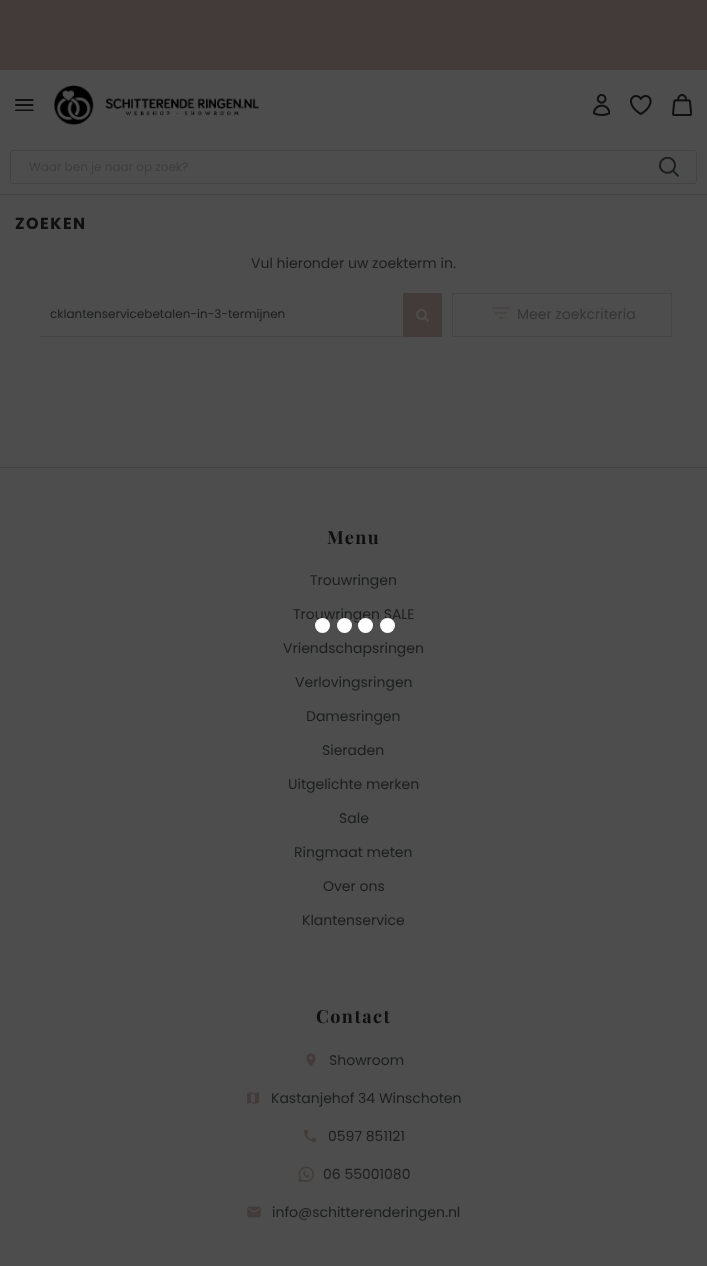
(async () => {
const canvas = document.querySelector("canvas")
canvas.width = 707
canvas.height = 1266
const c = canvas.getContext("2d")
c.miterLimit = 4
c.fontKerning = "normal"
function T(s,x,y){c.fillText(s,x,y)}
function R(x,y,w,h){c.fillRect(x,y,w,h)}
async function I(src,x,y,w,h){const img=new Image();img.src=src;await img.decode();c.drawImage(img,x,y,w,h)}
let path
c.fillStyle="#4d4d4d"
R(0,0,707,1266)
c.fillStyle="#434343"
R(0,194,707,1)
c.fillStyle="#423b3a"
R(0,0,707,70)
c.save()
c.beginPath()
c.rect(15,99,19,12)
c.clip()
path = new Path2D("M16 100h16.5m-16.5 5h16.5m-16.5 5.5h16.5")
c.strokeStyle="#0f0f0f"
c.lineWidth=2
c.lineCap="round"
c.lineJoin="round"
c.stroke(path)
c.restore()
await I("1.png",54,85,206,40)
await I("2.png",593,94,17,22)
await I("3.png",630,95,22,20)
await I("4.png",672,94,20,22)
c.beginPath()
c.roundRect(10.5,150.5,686,33,2.5)
c.strokeStyle="#434343"
c.stroke()
c.font="12px Poppins"
c.fillStyle="#3d3d3d"
T("Waar ben je naar op zoek?",29,171)
await I("5.png",659,157,20,20)
c.letterSpacing="1.5px"
c.font="bold 16px Poppins"
c.fillStyle="#0f0f0f"
T("ZOEKEN",15,229)
c.letterSpacing="0px"
c.font="14px Poppins"
c.fillStyle="#1c1d1d"
T("Vul hieronder uw zoekterm in.",251,268)
c.fillStyle="#434343"
R(40,336,363,1)
c.font="12px Poppins"
c.fillStyle="#1c1d1d"
T("cklantenservicebetalen-in-3-termijnen",50,318)
c.fillStyle="#423b3a"
R(403,293,39,44)
await I("6.png",416,309,13,13)
c.strokeStyle="#454545"
c.strokeRect(452.5,293.5,219,43)
await I("7.png",492,307,18,12)
c.font="14px Poppins"
c.fillStyle="#353535"
T("Meer zoekcriteria",517,319)
c.fillStyle="#1c1d1d"
T("Trouwringen SALE",293,619)
c.fillStyle="#fff"
c.beginPath()
c.arc(322.5,625.5,7.5,0,7)
c.fill()
c.beginPath()
c.arc(344.5,625.5,7.5,0,7)
c.fill()
c.beginPath()
c.arc(365.5,625.5,7.5,0,7)
c.fill()
c.beginPath()
c.arc(387.5,625.5,7.5,0,7)
c.fill()
c.fillStyle="#434343"
R(0,467,707,1)
c.letterSpacing="1.5px"
c.font="bold 18px Playfair Display"
c.fillStyle="#0f0f0f"
T("Menu",327,544)
c.letterSpacing="0px"
c.font="14px Poppins"
c.fillStyle="#1c1d1d"
T("Trouwringen",310,585)
T("Vriendschapsringen",283,653)
T("Verlovingsringen",295,687)
T("Damesringen",306,721)
T("Sieraden",322,755)
T("Uitgelichte merken",288,789)
T("Sale",339,823)
T("Ringmaat meten",294,857)
T("Over ons",323,891)
T("Klantenservice",302,925)
c.letterSpacing="1.5px"
c.font="bold 18px Playfair Display"
c.fillStyle="#0f0f0f"
T("Contact",316,1023)
await I("8.png",306,1053,10,14)
c.letterSpacing="0px"
c.font="14px Poppins"
c.fillStyle="#1c1d1d"
T("Showroom",329,1065)
await I("9.png",247,1092,12,12)
T("Kastanjehof 34 Winschoten",271,1103)
await I("10.png",304,1130,12,12)
T("0597 851121",328,1141)
await I("11.png",298,1166,16,16)
T("06 55001080",323,1179)
await I("12.png",247,1206,14,12)
T("info@schitterenderingen.nl",272,1217)
})()
